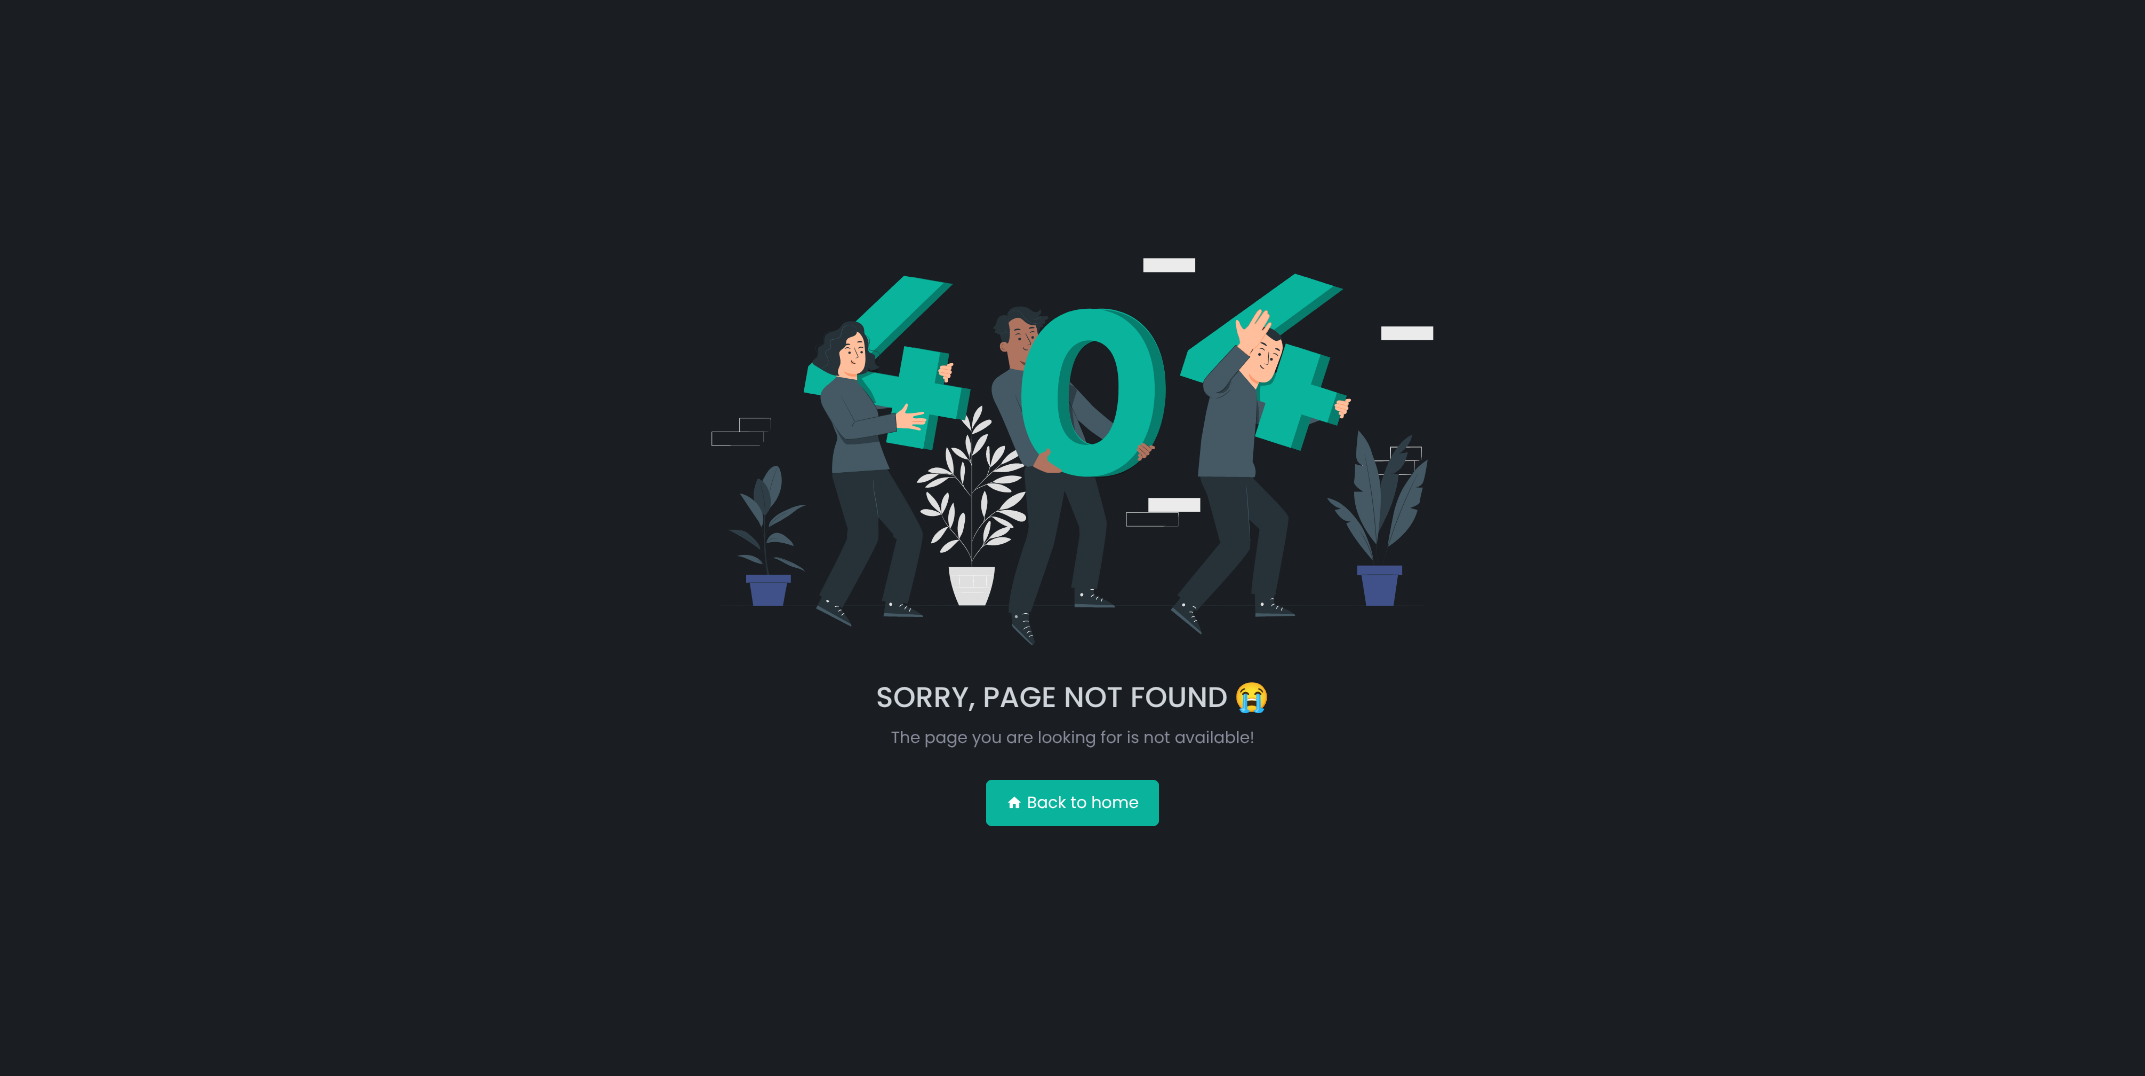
(async () => {
const canvas = document.querySelector("canvas")
canvas.width = 2145
canvas.height = 1076
const c = canvas.getContext("2d")
c.miterLimit = 4
c.fontKerning = "normal"
function T(s,x,y){c.fillText(s,x,y)}
function R(x,y,w,h){c.fillRect(x,y,w,h)}
async function I(src,x,y,w,h){const img=new Image();img.src=src;await img.decode();c.drawImage(img,x,y,w,h)}
c.fillStyle="#1a1d21"
R(0,0,2145,1076)
await I("1.png",711,258,723,387)
c.font="500 28.5px Poppins"
c.fillStyle="#ced4da"
T("SORRY, PAGE NOT FOUND",876,707)
c.font="28.5px Noto Color Emoji"
T("😭",1234,707)
c.font="16.25px Poppins"
c.fillStyle="#878a99"
T("The page you are looking for is not available!",891,743)
c.fillStyle="#0ab39c"
c.beginPath()
c.roundRect(986.5,780.5,172,45,4.5)
c.fill()
c.strokeStyle="#0ab39c"
c.stroke()
await I("2.png",1007,796,14,13)
c.fillStyle="#fff"
T("Back to home",1027,808)
})()
